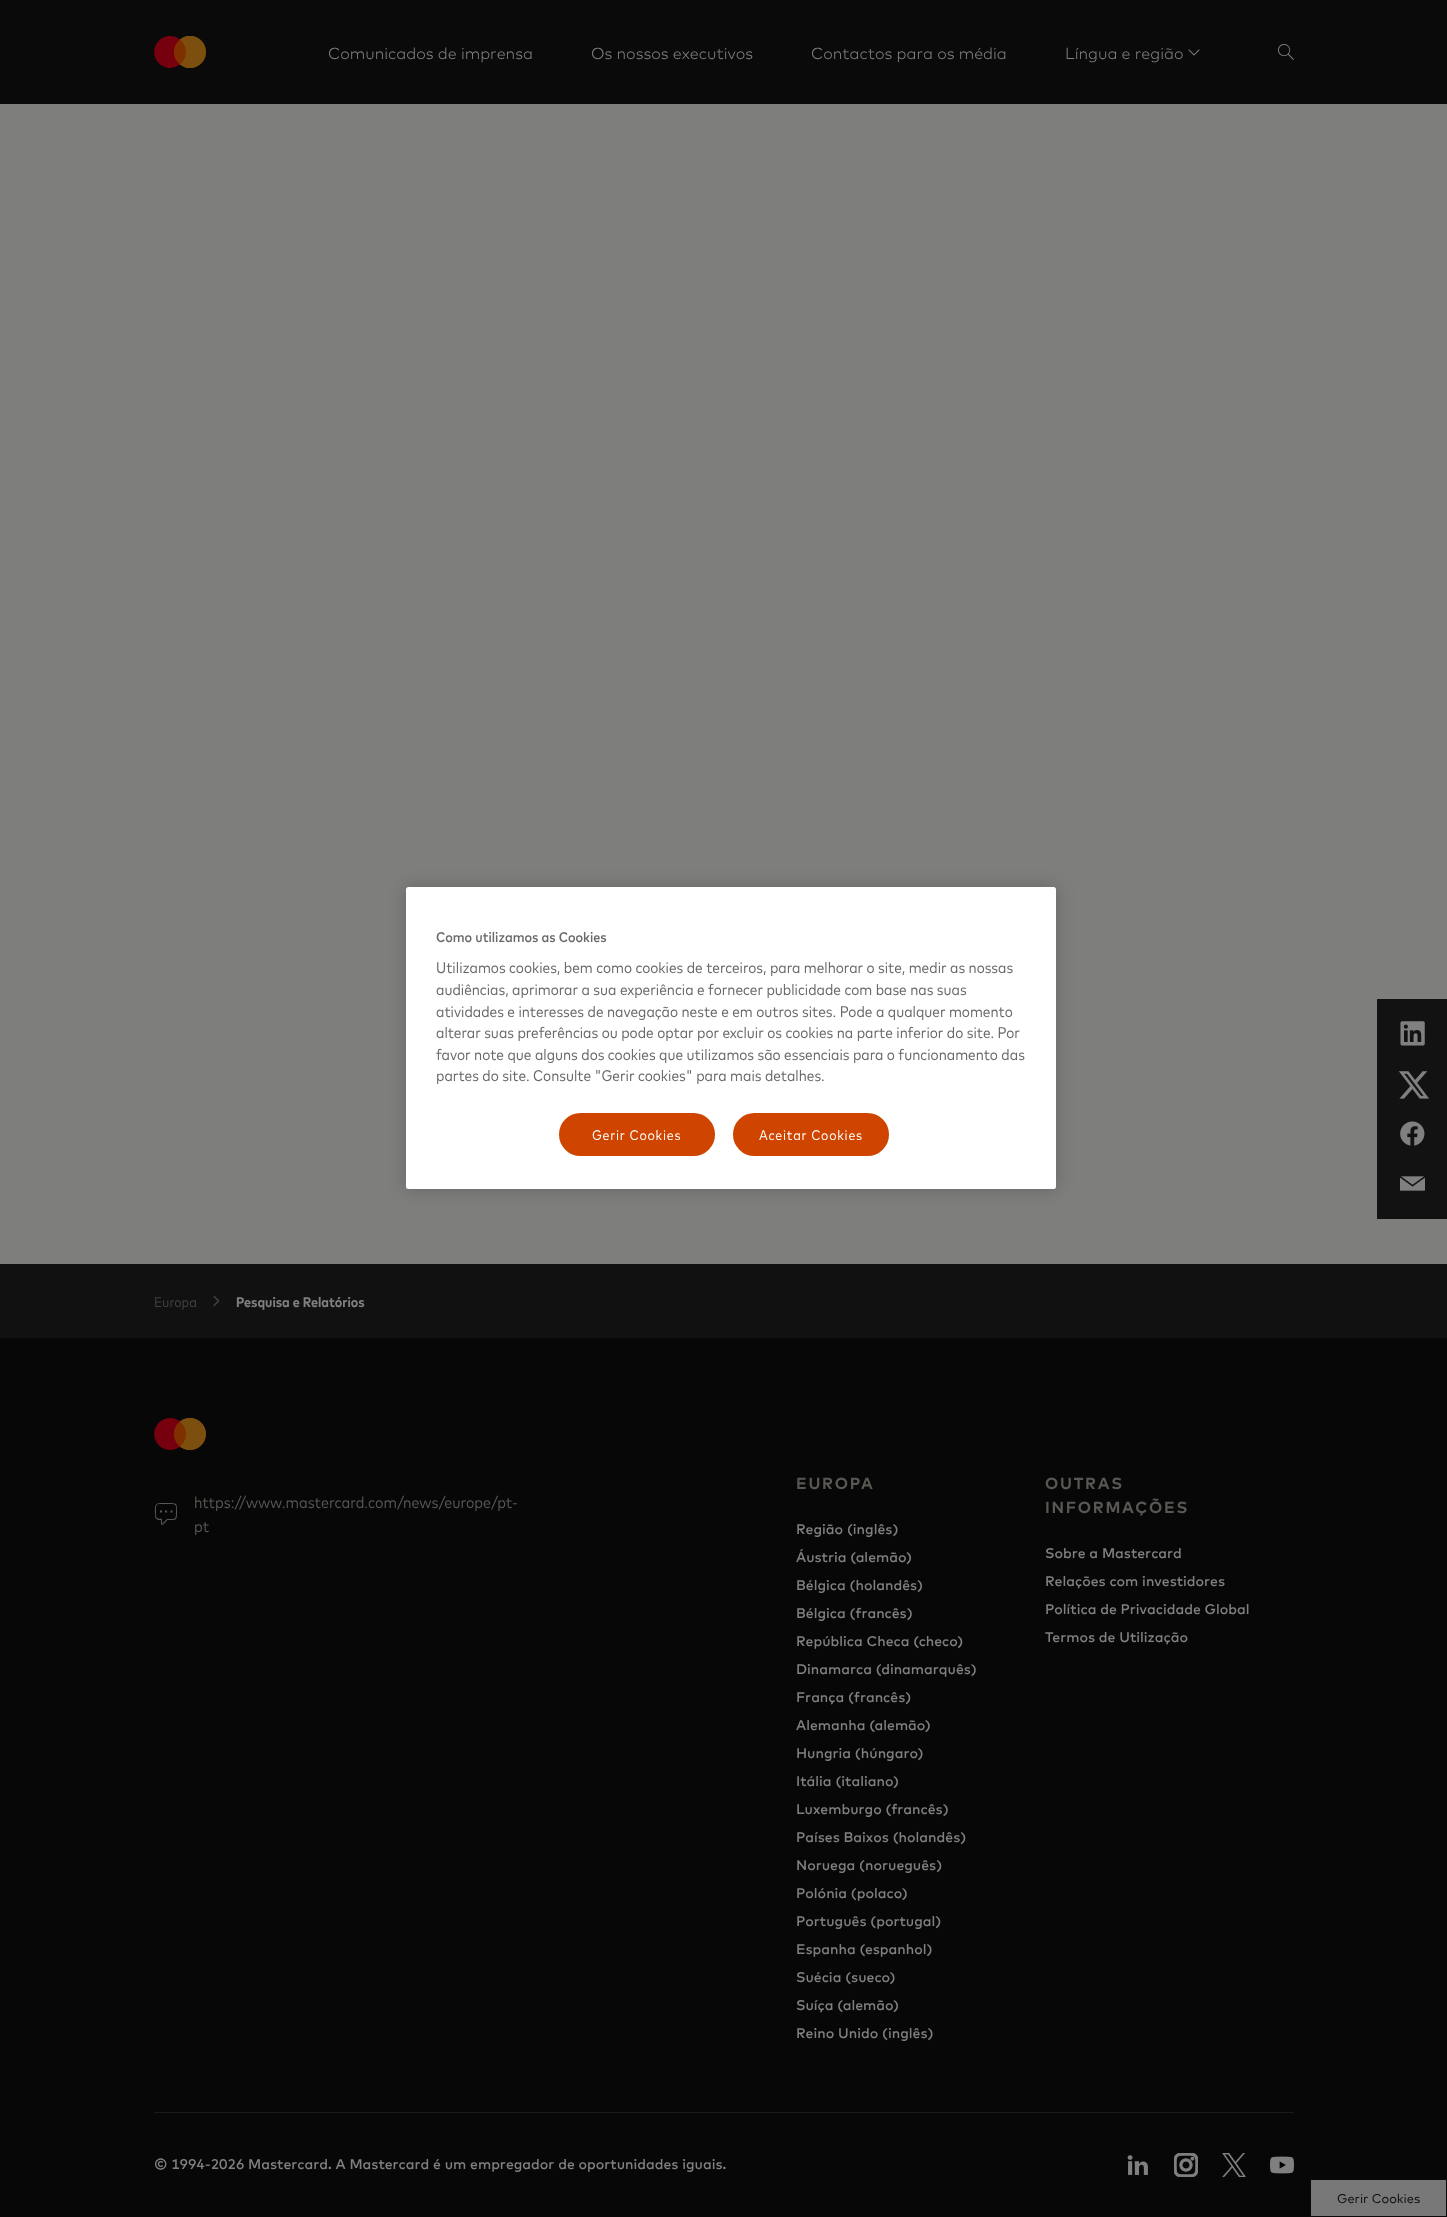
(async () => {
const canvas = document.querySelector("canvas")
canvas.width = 1447
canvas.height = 2217
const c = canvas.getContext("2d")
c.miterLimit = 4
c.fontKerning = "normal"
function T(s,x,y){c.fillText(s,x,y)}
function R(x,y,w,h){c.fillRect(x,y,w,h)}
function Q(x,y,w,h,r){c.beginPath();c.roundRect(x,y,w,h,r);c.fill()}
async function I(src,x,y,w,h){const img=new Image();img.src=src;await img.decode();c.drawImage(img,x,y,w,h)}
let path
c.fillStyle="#111"
R(0,0,1447,2217)
c.fillStyle="#0a0a0a"
R(0,0,1447,104)
await I("1.png",154,36,52,32)
c.font="300 16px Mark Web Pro"
c.fillStyle="#808080"
T("Comunicados de imprensa",328,59)
T("Os nossos executivos",591,59)
T("Contactos para os média",811,59)
await I("2.png",1188,49,12,7)
T("Língua e região",1065,59)
await I("3.png",1278,44,16,16)
c.fillStyle="#7e7e7d"
R(0,104,1447,1160)
c.fillStyle="#121212"
R(1377,999,70,220)
await I("4.png",1400,1021,25,25)
await I("5.png",1398,1071,31,28)
await I("6.png",1400,1121,25,25)
await I("7.png",1400,1176,25,15)
c.font="14px 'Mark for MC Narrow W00'"
c.fillStyle="#424242"
T("Europa",154,1307)
await I("8.png",213,1295,7,12)
c.font="bold 14px 'Mark for MC Narrow W00'"
c.fillStyle="#808080"
T("Pesquisa e Relatórios",236,1307)
c.fillStyle="#070707"
R(0,1338,1447,879)
await I("9.png",154,1418,52,32)
c.fillStyle="#595753"
path = new Path2D("M162 1525c1.5 0 4.5-4 5.5-5c9 0 9.5 1 9.5-8.5c0-8.5 0-8.5-8.5-8.5c-2.5 0-9-.5-11 .5c-3.5 1.5-2.5 6.5-2.5 9.5c0 5.5 .5 7 6 7c0 1-.5 5 1 5zm-3-21h12c6 0 5 2 5 7.5c0 9-.5 7.5-9 7.5l-5 5v-5c-.5-.5-4 .5-5.5-1.5c-1-1.5-.5-4-.5-6c0-2.5-1-7.5 3-7.5zm3 6.5v2h-2v-2zm5 0v2h-2v-2zm5.5 0v2h-2v-2z")
c.fill(path,"evenodd")
c.font="16px 'Mark for MC Narrow W00'"
T("https://www.mastercard.com/news/europe/pt-",194,1508)
T("pt",194,1532)
c.letterSpacing="1.75px"
c.font="bold 16px Mark Web Pro"
T("EUROPA",796,1489)
c.letterSpacing="0px"
c.font="500 14px Mark Web Pro"
c.fillStyle="#808080"
T("Região (inglês)",796,1534)
T("Áustria (alemão)",796,1562)
T("Bélgica (holandês)",796,1590)
T("Bélgica (francês)",796,1618)
T("República Checa (checo)",796,1646)
T("Dinamarca (dinamarquês)",796,1674)
T("França (francês)",796,1702)
T("Alemanha (alemão)",796,1730)
T("Hungria (húngaro)",796,1758)
T("Itália (italiano)",796,1786)
T("Luxemburgo (francês)",796,1814)
T("Países Baixos (holandês)",796,1842)
T("Noruega (norueguês)",796,1870)
T("Polónia (polaco)",796,1898)
T("Português (portugal)",796,1926)
T("Espanha (espanhol)",796,1954)
T("Suécia (sueco)",796,1982)
T("Suíça (alemão)",796,2010)
T("Reino Unido (inglês)",796,2038)
c.letterSpacing="1.75px"
c.font="bold 16px Mark Web Pro"
c.fillStyle="#595753"
T("OUTRAS",1045,1489)
T("INFORMAÇÕES",1045,1513)
c.letterSpacing="0px"
c.font="500 14px Mark Web Pro"
c.fillStyle="#808080"
T("Sobre a Mastercard",1045,1558)
T("Relações com investidores",1045,1586)
T("Política de Privacidade Global",1045,1614)
T("Termos de Utilização",1045,1642)
c.fillStyle="#1a1a19"
R(154,2112,1140,1)
c.fillStyle="#808080"
T("© 1994-2026 Mastercard. A Mastercard é um empregador de oportunidades iguais.",154,2169)
await I("10.png",1127,2155,21,20)
await I("11.png",1174,2153,24,24)
await I("12.png",1222,2153,24,24)
await I("13.png",1270,2156,24,18)
c.fillStyle="#787878"
c.beginPath()
c.rect(1310.5,2179.5,136,37)
c.fill()
c.strokeStyle="#0a0a0a"
c.stroke()
c.font="12.75px Mark Web Pro"
c.fillStyle="#0a0a0a"
T("Gerir Cookies",1337,2203)
c.fillStyle="#00000033"
c.filter="blur(9px)"
c.beginPath()
c.roundRect(406,887,650,302,2.5)
c.fill()
c.filter="none"
c.fillStyle="#fff"
Q(406,887,650,302,2.5)
c.font="500 14px 'Mark for MC Narrow W00'"
c.fillStyle="#696969"
T("Como utilizamos as Cookies",436,942)
c.font="15.4px 'Mark for MC Narrow W00'"
T("Utilizamos cookies, bem como cookies de terceiros, para melhorar o site, medir as nossas",436,973)
T("audiências, aprimorar a sua experiência e fornecer publicidade com base nas suas",436,995)
T("atividades e interesses de navegação neste e em outros sites. Pode a qualquer momento",436,1017)
T("alterar suas preferências ou pode optar por excluir os cookies na parte inferior do site. Por",436,1038)
T("favor note que alguns dos cookies que utilizamos são essenciais para o funcionamento das",436,1060)
T("partes do site. Consulte \"Gerir cookies\" para mais detalhes.",436,1081)
c.fillStyle="#cf4500"
c.beginPath()
c.roundRect(558,1112,158,45,22.5)
c.fill()
c.strokeStyle="#fff"
c.lineWidth=2
c.stroke()
c.letterSpacing="0.75px"
c.font="14px 'Mark for MC Narrow W00'"
c.fillStyle="#fff"
T("Gerir Cookies",592,1140)
c.fillStyle="#cf4500"
c.beginPath()
c.roundRect(732,1112,158,45,22.5)
c.fill()
c.stroke()
c.fillStyle="#fff"
T("Aceitar Cookies",759,1140)
})()
